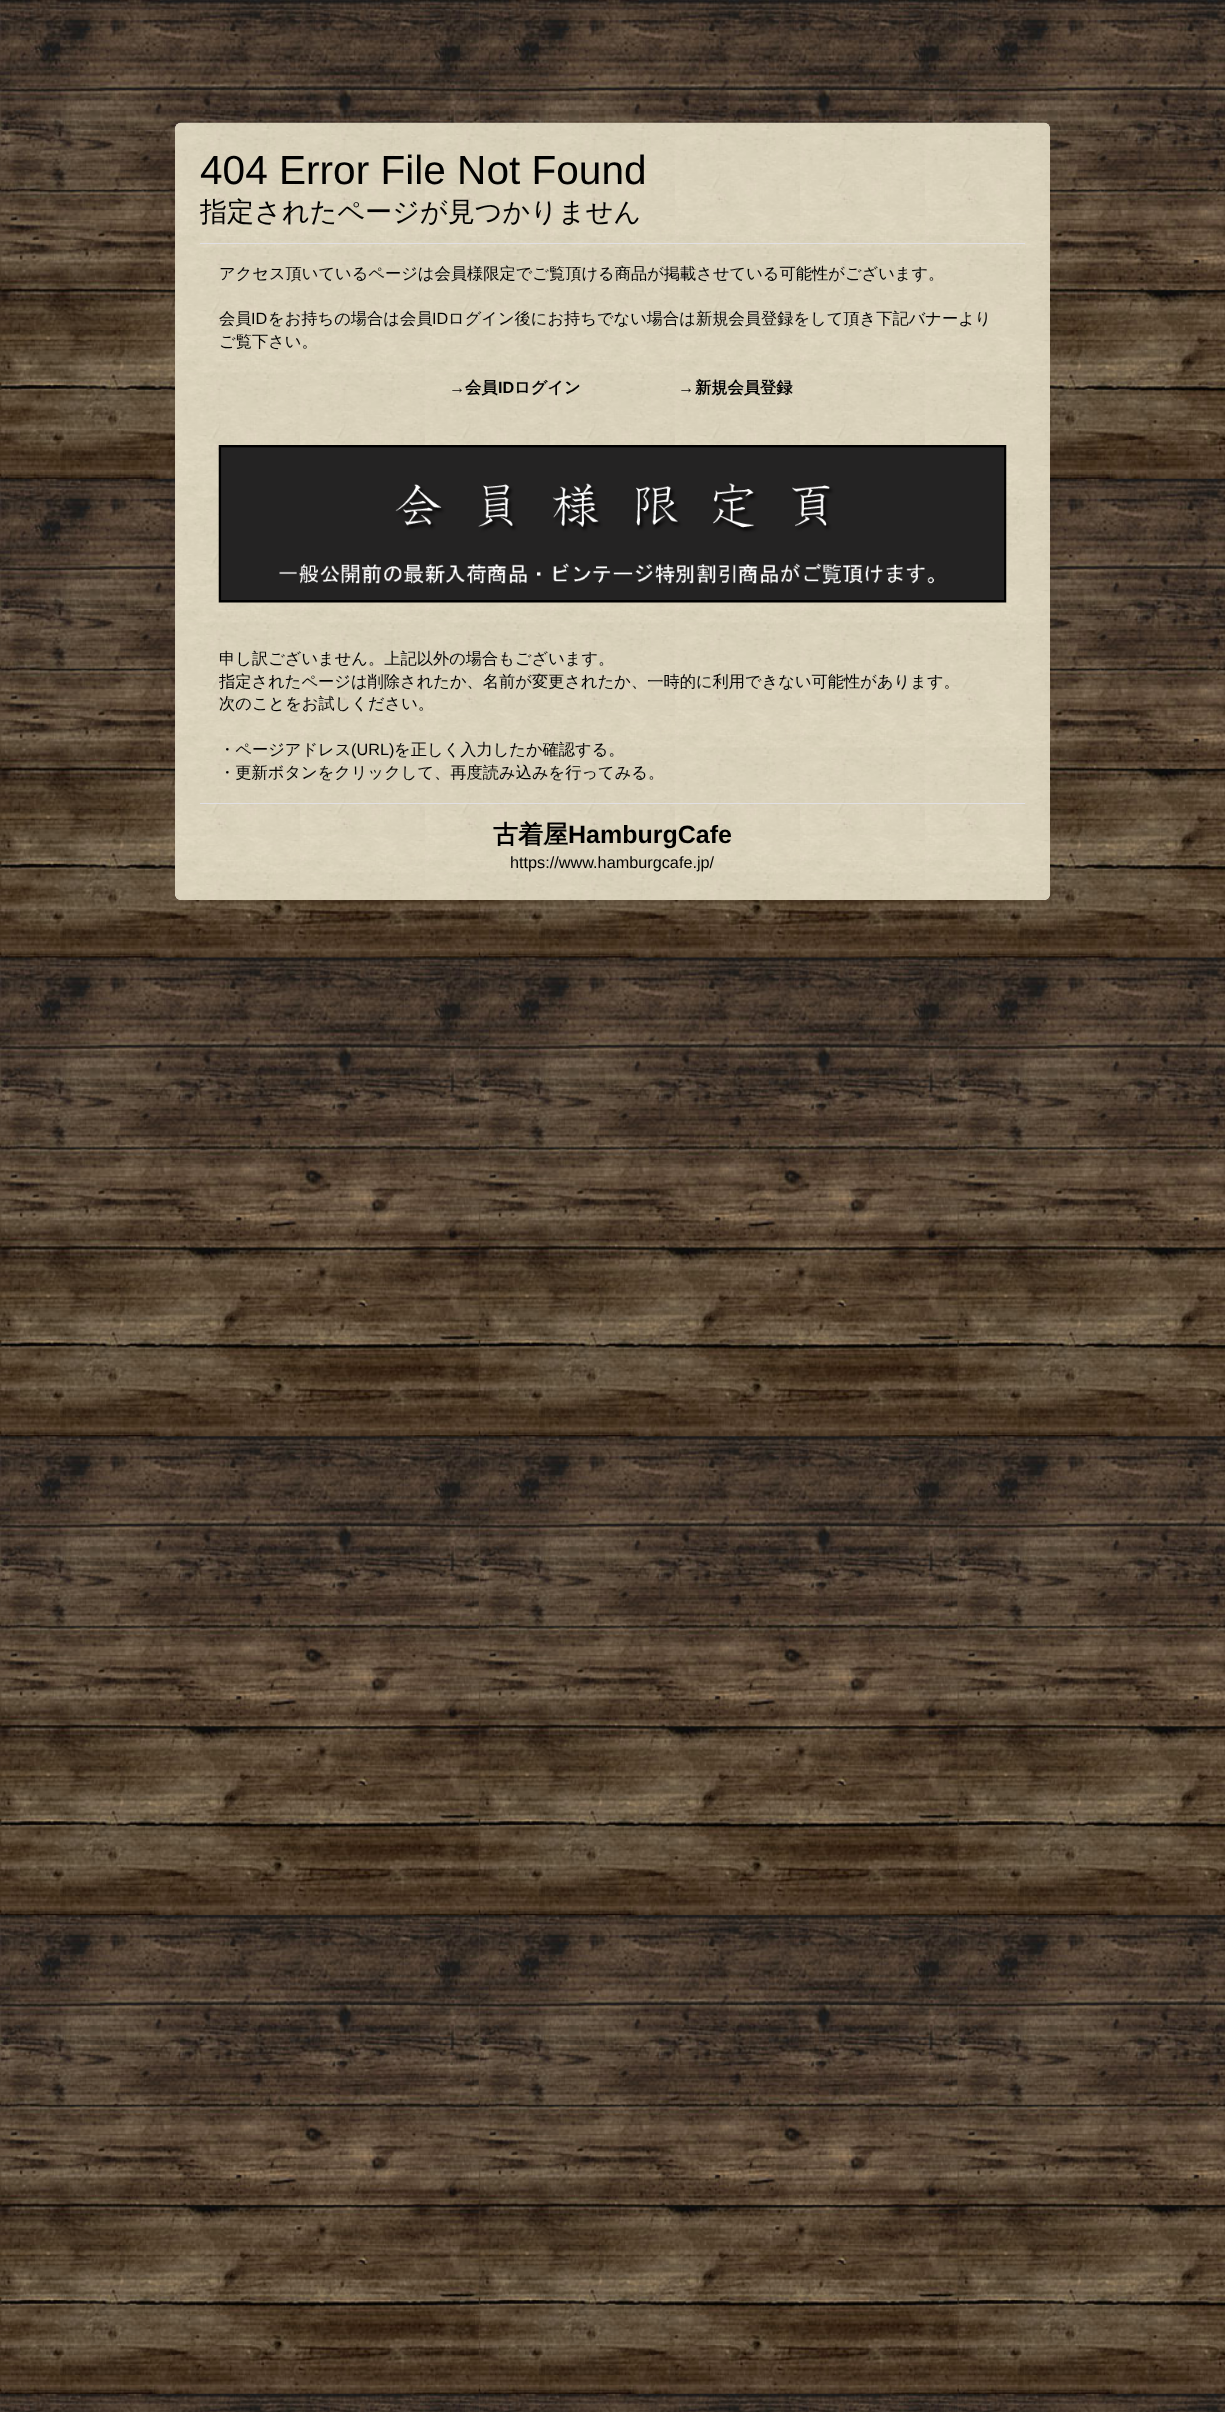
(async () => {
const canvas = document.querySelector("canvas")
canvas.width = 1225
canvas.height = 2412
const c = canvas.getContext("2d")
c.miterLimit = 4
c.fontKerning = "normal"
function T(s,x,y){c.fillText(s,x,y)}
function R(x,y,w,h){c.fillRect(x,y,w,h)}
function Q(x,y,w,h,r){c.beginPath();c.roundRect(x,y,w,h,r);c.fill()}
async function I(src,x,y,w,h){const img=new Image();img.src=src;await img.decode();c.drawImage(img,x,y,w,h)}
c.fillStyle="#fff"
R(0,0,1225,2412)
await I("1.png",0,0,1225,2412)
Q(175,123,875,777,6)
await I("2.png",175,122,875,778)
c.font="40.6px Liberation Sans"
c.fillStyle="#000"
T("404 Error File Not Found",200,184)
c.font="500 27.1px WenQuanYi Zen Hei"
T("指定されたページが見つかりません",200,221)
c.fillStyle="#e0dfe3"
R(200,243,825,1)
R(200,803,825,1)
c.font="500 16.25px WenQuanYi Zen Hei"
c.fillStyle="#000"
T("アクセス頂いているページは会員様限定でご覧頂ける商品が掲載させている可能性がございます。",219,279)
T("会員",219,324)
c.font="16.25px Liberation Sans"
T("ID",251,324)
c.font="500 16.25px WenQuanYi Zen Hei"
T("をお持ちの場合は会員",268,324)
c.font="16.25px Liberation Sans"
T("ID",432,324)
c.font="500 16.25px WenQuanYi Zen Hei"
T("ログイン後にお持ちでない場合は新規会員登録をして頂き下記バナーより",448,324)
T("ご覧下さい。",219,347)
c.font="bold 16.25px Liberation Sans"
T("→",449,393)
c.font="bold 16.25px WenQuanYi Zen Hei"
T("会員",465,393)
c.font="bold 16.25px Liberation Sans"
T("ID",498,393)
c.font="bold 16.25px WenQuanYi Zen Hei"
T("ログイン",514,393)
c.font="bold 16.25px Liberation Sans"
T("→",678,393)
c.font="bold 16.25px WenQuanYi Zen Hei"
T("新規会員登録",695,393)
await I("3.png",218,445,789,158)
c.font="500 16.25px WenQuanYi Zen Hei"
T("申し訳ございません。上記以外の場合もございます。",219,664)
T("指定されたページは削除されたか、名前が変更されたか、一時的に利用できない可能性があります。",219,687)
T("次のことをお試しください。",219,709)
T("・ページアドレス",219,755)
c.font="16.25px Liberation Sans"
T("(URL)",351,755)
c.font="500 16.25px WenQuanYi Zen Hei"
T("を正しく入力したか確認する。",394,755)
T("・更新ボタンをクリックして、再度読み込みを行ってみる。",219,778)
c.font="bold 25px WenQuanYi Zen Hei"
T("古着屋",493,843)
c.font="bold 25px Liberation Sans"
T("HamburgCafe",568,843)
c.font="16.25px Liberation Sans"
T("https://www.hamburgcafe.jp/",510,868)
})()
